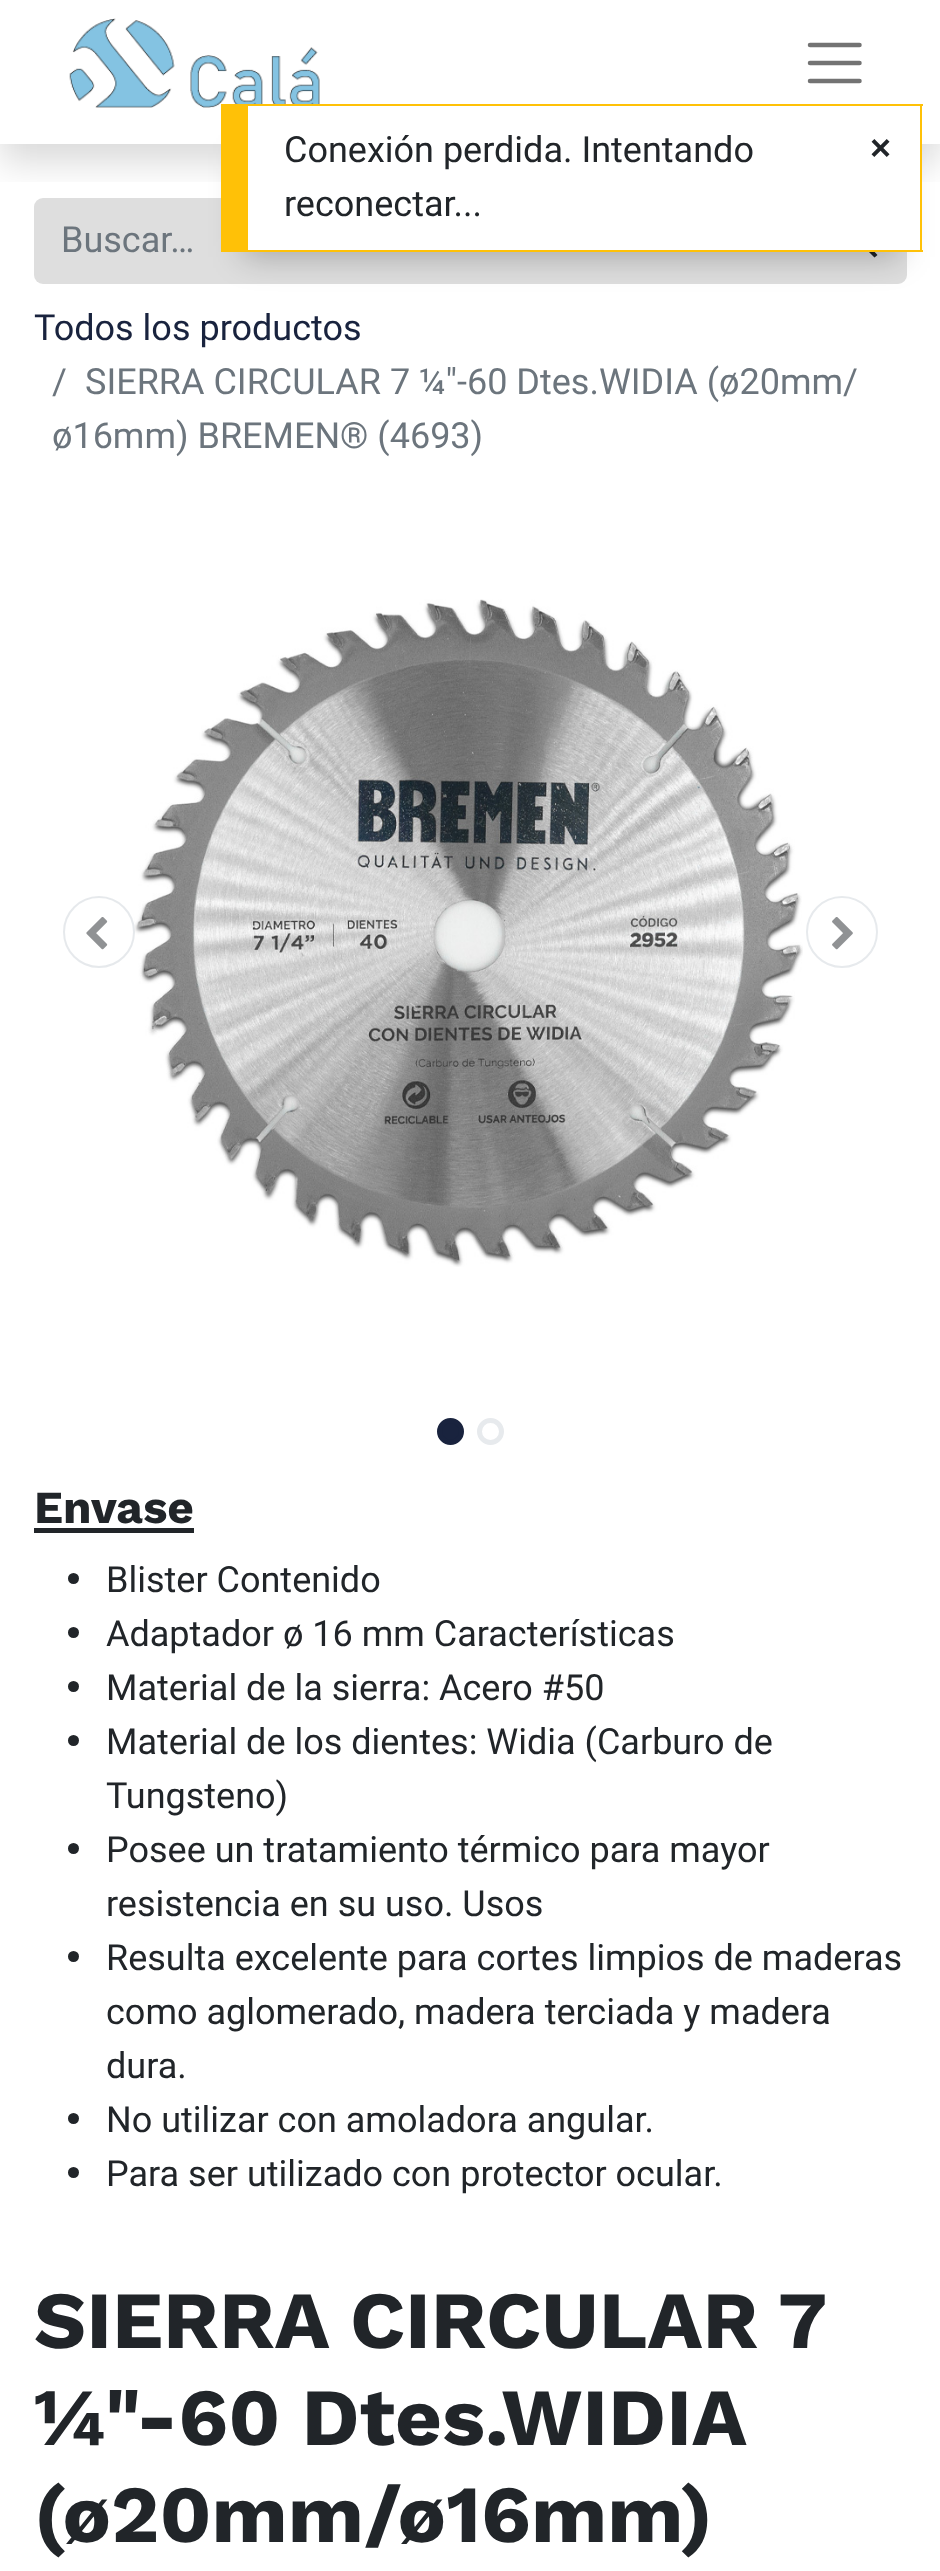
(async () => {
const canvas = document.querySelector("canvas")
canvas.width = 940
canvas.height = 2571
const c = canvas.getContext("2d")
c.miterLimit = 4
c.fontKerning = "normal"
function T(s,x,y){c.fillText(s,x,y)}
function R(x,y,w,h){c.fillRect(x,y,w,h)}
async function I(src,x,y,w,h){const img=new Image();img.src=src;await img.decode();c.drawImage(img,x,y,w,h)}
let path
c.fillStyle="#fff"
R(0,0,940,2571)
c.fillStyle="#dedede"
c.beginPath()
c.roundRect(34,198,781,86,[9,0,0,9])
c.fill()
c.beginPath()
c.roundRect(813,199,93,84,[0,8,8,0])
c.fill()
c.strokeStyle="#dedede"
c.lineWidth=2
c.stroke()
c.save()
c.beginPath()
c.rect(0,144,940,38)
c.clip()
c.fillStyle="#00000026"
c.filter="blur(18px)"
c.beginPath()
c.rect(0,18,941,144)
c.fill()
c.filter="none"
c.restore()
await I("1.png",69,18,251,90)
c.fillStyle="#212529"
path = new Path2D("M845 227c11.5-14.5 33.5 2.5 22.5 17.5l10 10.5l-3 2.5l-10-10c-13.5 10.5-30.5-7.5-19.5-20.5zm11-1.5c-14 0-14 21 0 21c13.5 0 13.5-21 0-21z")
c.fill(path)
c.fillStyle="#00000040"
c.filter="blur(16px)"
c.beginPath()
c.rect(243,153,657,104)
c.fill()
c.filter="none"
c.fillStyle="#fff"
R(248,106,672,144)
c.fillStyle="#ffc107"
R(248,104,675,2)
R(920,104,2,148)
R(248,250,675,2)
R(221,104,27,148)
c.font="36px Roboto"
c.fillStyle="#212529"
T("Conexión perdida. Intentando",284,162)
T("reconectar...",284,216)
c.font="bold 36px Liberation Sans"
T("×",870,160)
path = new Path2D("M810 45h49.5m-49.5 18h49.5m-49.5 18h49.5")
c.strokeStyle="#737373"
c.lineWidth=4.5
c.lineCap="round"
c.stroke(path)
c.font="36px Roboto"
c.fillStyle="#6c757d"
T("Buscar…",61,252)
c.fillStyle="#19233e"
T("Todos los productos",34,340)
c.fillStyle="#6c757d"
T("/",52,394)
T("SIERRA CIRCULAR 7 ¼\"-60 Dtes.WIDIA (ø20mm/",85,394)
T("ø16mm) BREMEN® (4693)",52,448)
await I("3.png",133,599,670,668)
c.fillStyle="#ffffff80"
c.beginPath()
c.arc(99,932,36,0,7)
c.fill()
c.beginPath()
c.arc(99,932,35,0,7)
c.strokeStyle="#ced4da80"
c.lineWidth=2
c.stroke()
await I("2.png",86,917,22,33)
c.beginPath()
c.arc(842,932,35,0,7)
c.strokeStyle="#e7eaed"
c.stroke()
await I("4.png",832,917,21,33)
c.fillStyle="#19233e"
c.beginPath()
c.arc(450.5,1431.5,11,0,7)
c.fill()
c.strokeStyle="#19233e"
c.lineWidth=5
c.stroke()
c.beginPath()
c.arc(490.5,1431.5,11,0,7)
c.strokeStyle="#e7eaed"
c.stroke()
c.font="bold 46px Work Sans"
c.fillStyle="#212529"
T("Envase",34,1523)
R(34,1528,160,5)
c.beginPath()
c.arc(73.5,1578.5,5.5,0,7)
c.fill()
c.font="36px Roboto"
T("Blister Contenido",106,1592)
c.beginPath()
c.arc(73.5,1632.5,5.5,0,7)
c.fill()
T("Adaptador ø 16 mm Características",106,1646)
c.beginPath()
c.arc(73.5,1686.5,5.5,0,7)
c.fill()
T("Material de la sierra: Acero #50",106,1700)
c.beginPath()
c.arc(73.5,1740.5,5.5,0,7)
c.fill()
T("Material de los dientes: Widia (Carburo de",106,1754)
T("Tungsteno)",106,1808)
c.beginPath()
c.arc(73.5,1848.5,5.5,0,7)
c.fill()
T("Posee un tratamiento térmico para mayor",106,1862)
T("resistencia en su uso. Usos",106,1916)
c.beginPath()
c.arc(73.5,1956.5,5.5,0,7)
c.fill()
T("Resulta excelente para cortes limpios de maderas",106,1970)
T("como aglomerado, madera terciada y madera",106,2024)
T("dura.",106,2078)
c.beginPath()
c.arc(73.5,2118.5,5.5,0,7)
c.fill()
T("No utilizar con amoladora angular.",106,2132)
c.beginPath()
c.arc(73.5,2172.5,5.5,0,7)
c.fill()
T("Para ser utilizado con protector ocular.",106,2186)
c.wordSpacing="-1px"
c.font="bold 81px Work Sans"
T("SIERRA CIRCULAR 7",34,2348)
c.wordSpacing="-2px"
T("¼\"-60 Dtes.WIDIA",34,2445)
c.wordSpacing="0px"
T("(ø20mm/ø16mm)",34,2542)
})()
